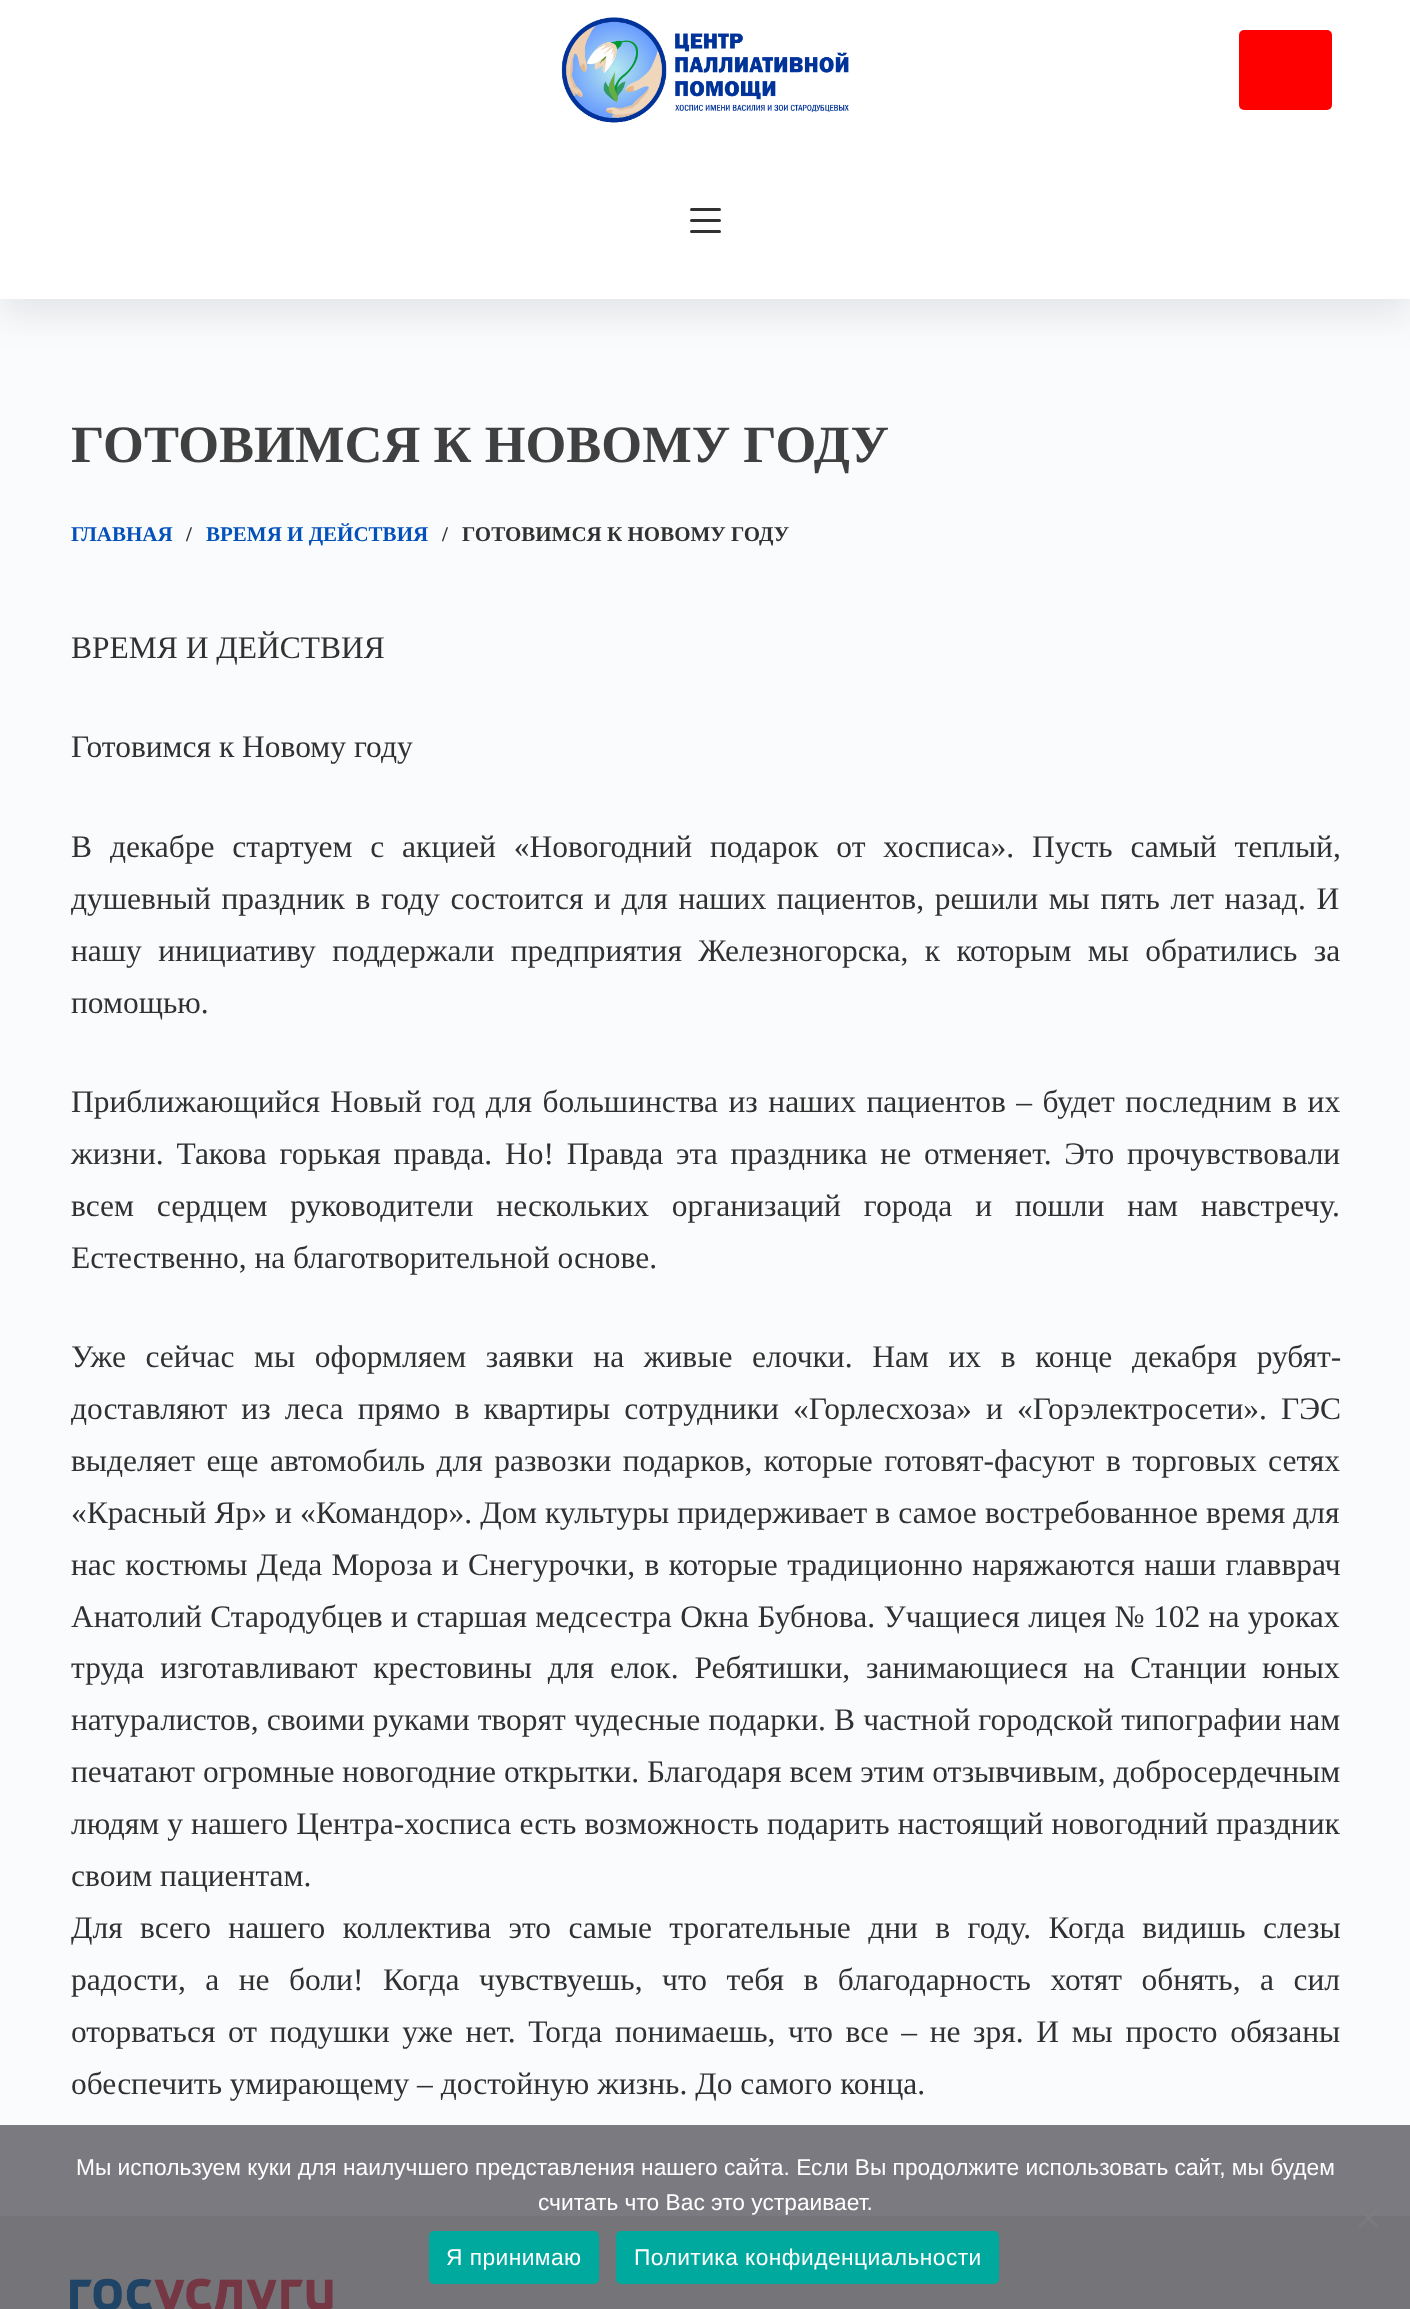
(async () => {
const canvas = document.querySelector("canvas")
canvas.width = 1410
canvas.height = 2309
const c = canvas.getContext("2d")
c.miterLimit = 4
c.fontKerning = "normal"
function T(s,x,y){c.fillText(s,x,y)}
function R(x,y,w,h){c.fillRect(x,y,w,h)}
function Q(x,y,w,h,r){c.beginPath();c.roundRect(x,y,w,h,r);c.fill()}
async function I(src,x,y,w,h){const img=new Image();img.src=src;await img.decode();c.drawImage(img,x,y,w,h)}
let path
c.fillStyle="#fafbfc"
R(0,0,1410,2309)
c.fillStyle="#7a7a80"
R(0,2125,1410,91)
c.fillStyle="#2b3d4f1a"
c.filter="blur(17.5px)"
c.beginPath()
c.rect(0,158,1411,159)
c.fill()
c.filter="none"
c.fillStyle="#fff"
R(0,0,1410,299)
c.fillStyle="#313131"
Q(690,208,31,3,1.5)
Q(690,219,31,3,1.5)
Q(690,230,31,3,1.5)
await I("1.png",561,17,288,106)
c.fillStyle="#f00"
Q(1239,30,93,80,5)
c.font="bold 52.5px Liberation Serif"
c.fillStyle="#404040"
T("ГОТОВИМСЯ К НОВОМУ ГОДУ",71,462)
c.font="bold 21px Liberation Serif"
c.fillStyle="#0451ba"
T("ГЛАВНАЯ",71,541)
c.fillStyle="#313131"
T("/",186,541)
c.fillStyle="#0451ba"
T("ВРЕМЯ И ДЕЙСТВИЯ",206,541)
c.fillStyle="#313131"
T("/",442,541)
T("ГОТОВИМСЯ К НОВОМУ ГОДУ",462,541)
c.font="31.5px Liberation Serif"
T("ВРЕМЯ И ДЕЙСТВИЯ",71,658)
T("Готовимся к Новому году",71,757)
c.wordSpacing="10px"
T("В декабре стартуем с акцией «Новогодний подарок от хосписа». Пусть самый теплый,",71,857)
c.wordSpacing="2.75px"
T("душевный праздник в году состоится и для наших пациентов, решили мы пять лет назад. И",71,909)
c.wordSpacing="8.5px"
T("нашу инициативу поддержали предприятия Железногорска, к которым мы обратились за",71,961)
c.wordSpacing="0px"
T("помощью.",71,1013)
c.wordSpacing="2.6px"
T("Приближающийся Новый год для большинства из наших пациентов – будет последним в их",71,1112)
c.wordSpacing="4.9px"
T("жизни. Такова горькая правда. Но! Правда эта праздника не отменяет. Это прочувствовали",71,1164)
c.wordSpacing="15px"
T("всем сердцем руководители нескольких организаций города и пошли нам навстречу.",71,1216)
c.wordSpacing="0px"
T("Естественно, на благотворительной основе.",71,1268)
c.wordSpacing="11.75px"
T("Уже сейчас мы оформляем заявки на живые елочки. Нам их в конце декабря рубят-",71,1367)
c.wordSpacing="6.25px"
T("доставляют из леса прямо в квартиры сотрудники «Горлесхоза» и «Горэлектросети». ГЭС",71,1419)
c.wordSpacing="3.5px"
T("выделяет еще автомобиль для развозки подарков, которые готовят-фасуют в торговых сетях",71,1471)
c.wordSpacing="0.25px"
T("«Красный Яр» и «Командор». Дом культуры придерживает в самое востребованное время для",71,1523)
c.wordSpacing="1.5px"
T("нас костюмы Деда Мороза и Снегурочки, в которые традиционно наряжаются наши главврач",71,1575)
c.wordSpacing="0.5px"
T("Анатолий Стародубцев и старшая медсестра Окна Бубнова. Учащиеся лицея № 102 на уроках",71,1627)
c.wordSpacing="8px"
T("труда изготавливают крестовины для елок. Ребятишки, занимающиеся на Станции юных",71,1678)
c.wordSpacing="0.25px"
T("натуралистов, своими руками творят чудесные подарки. В частной городской типографии нам",71,1730)
c.wordSpacing="0px"
T("печатают огромные новогодние открытки. Благодаря всем этим отзывчивым, добросердечным",71,1782)
c.wordSpacing="0.25px"
T("людям у нашего Центра-хосписа есть возможность подарить настоящий новогодний праздник",71,1834)
c.wordSpacing="0px"
T("своим пациентам.",71,1886)
c.wordSpacing="9.5px"
T("Для всего нашего коллектива это самые трогательные дни в году. Когда видишь слезы",71,1938)
c.wordSpacing="11.6px"
T("радости, а не боли! Когда чувствуешь, что тебя в благодарность хотят обнять, а сил",71,1990)
c.wordSpacing="4.75px"
T("оторваться от подушки уже нет. Тогда понимаешь, что все – не зря. И мы просто обязаны",71,2042)
c.wordSpacing="0px"
T("обеспечить умирающему – достойную жизнь. До самого конца.",71,2094)
c.fillStyle="#747479"
R(0,2216,1410,93)
await I("2.png",70,2278,263,31)
c.font="22.75px Liberation Sans"
c.fillStyle="#fff"
T("Мы используем куки для наилучшего представления нашего сайта. Если Вы продолжите использовать сайт, мы будем",76,2175)
T("считать что Вас это устраивает.",538,2210)
c.fillStyle="#80808080"
path = new Path2D("M1376.5 2207.5l2.5 2.5l-18.5 18.5l-2.5-2.5z")
c.fill(path)
path = new Path2D("M1358 2210l2.5-2.5l18.5 18.5l-2.5 2.5z")
c.fill(path)
c.fillStyle="#00a99d"
Q(429,2231,170,53,5)
c.letterSpacing="0.45px"
c.fillStyle="#fff"
T("Я принимаю",446,2265)
c.fillStyle="#00a99d"
Q(616,2231,383,53,5)
c.fillStyle="#fff"
T("Политика конфиденциальности",634,2265)
})()
